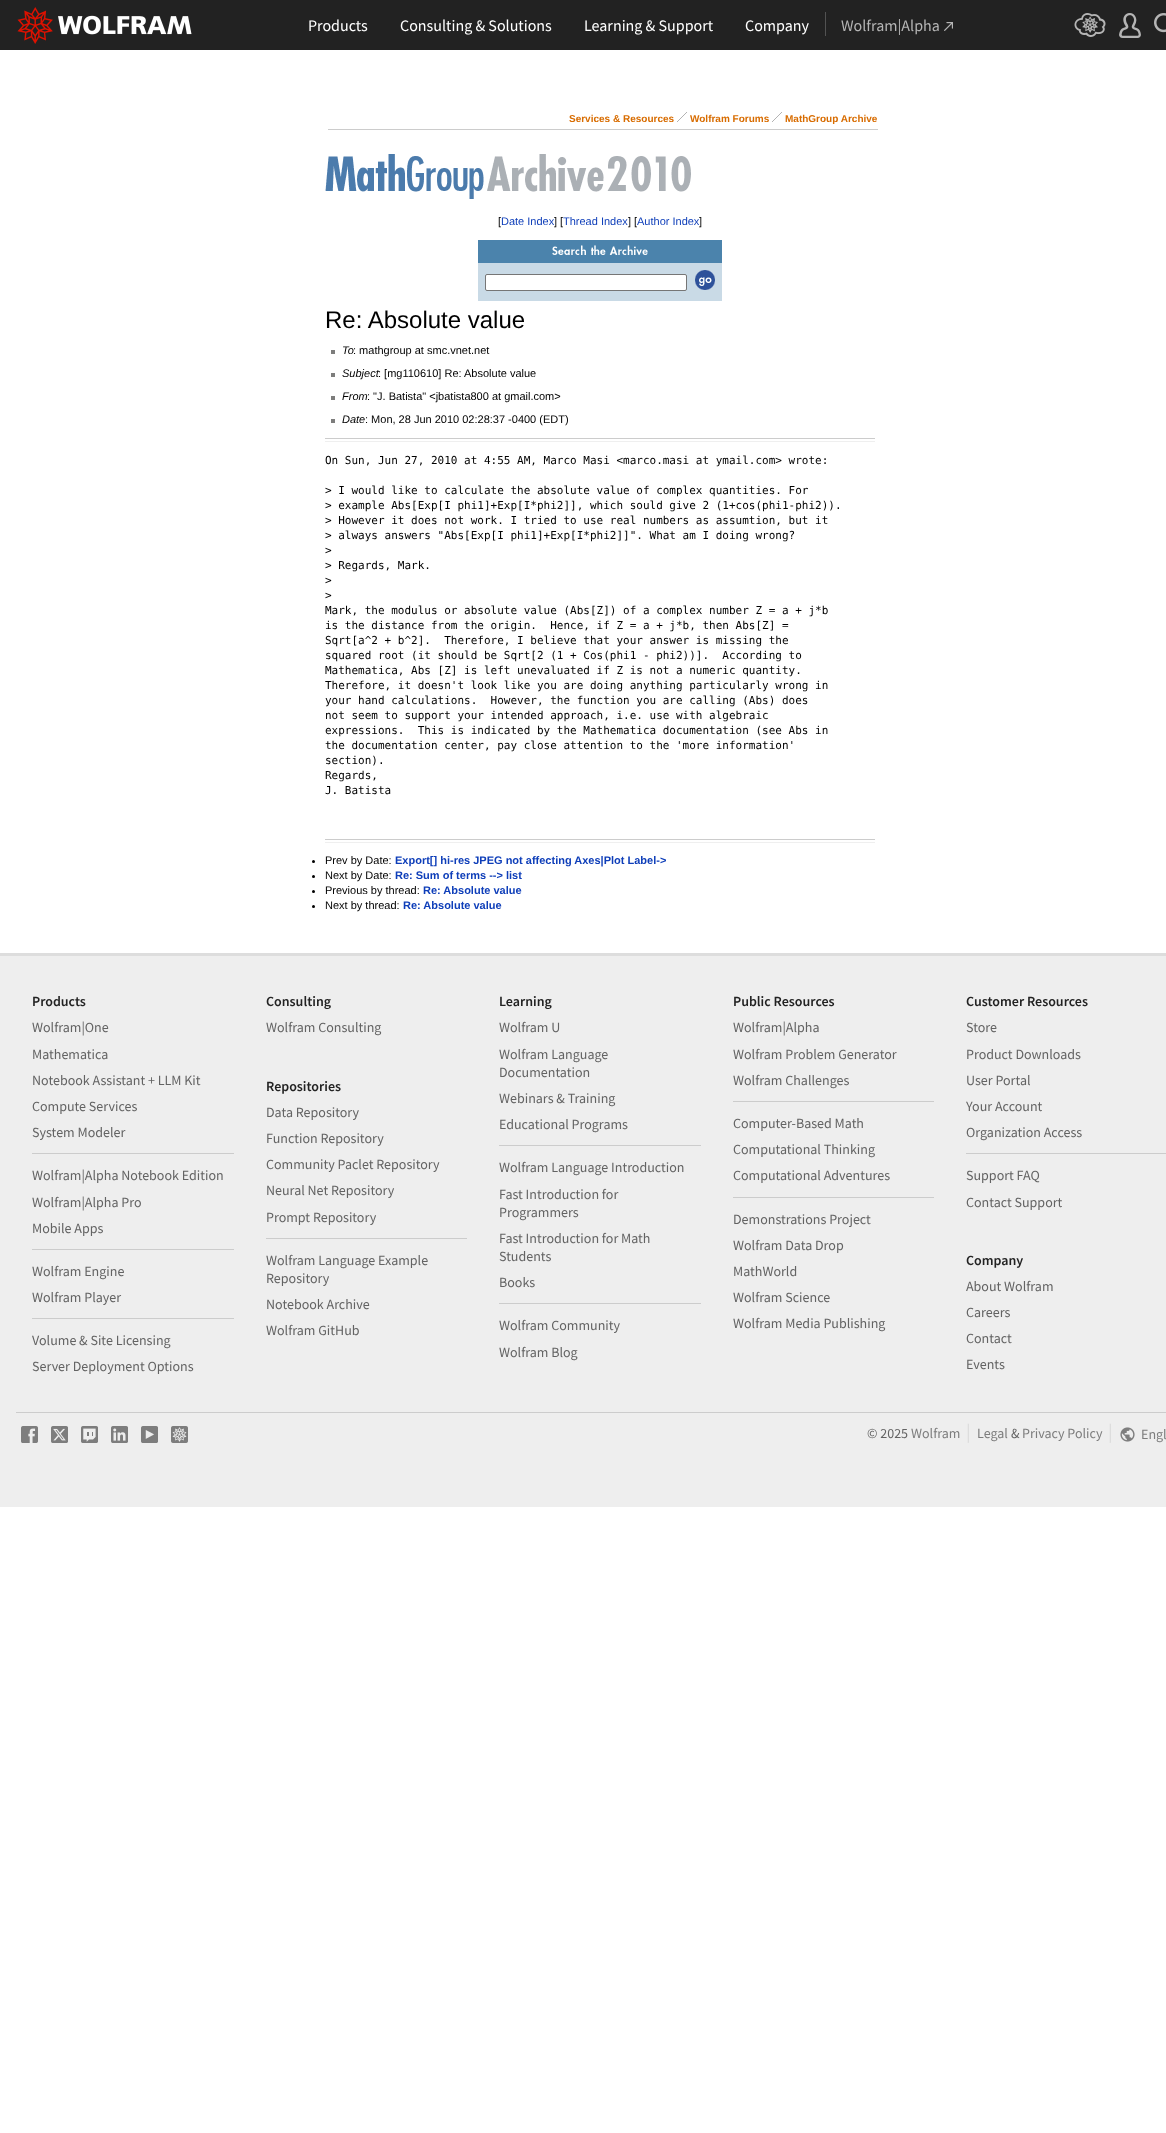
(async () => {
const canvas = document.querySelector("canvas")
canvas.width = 1166
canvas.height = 2133
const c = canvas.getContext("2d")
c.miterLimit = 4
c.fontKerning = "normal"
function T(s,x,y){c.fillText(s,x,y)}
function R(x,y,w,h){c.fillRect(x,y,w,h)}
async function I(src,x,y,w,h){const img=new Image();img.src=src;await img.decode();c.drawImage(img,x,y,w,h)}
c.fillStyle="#fff"
R(0,0,1166,2133)
c.fillStyle="#222"
R(0,0,1166,50)
await I("1.png",17,7,175,37)
c.font="16px Source Sans Pro"
c.fillStyle="#fff"
T("Products",308,31)
T("Consulting & Solutions",400,31)
T("Learning & Support",584,31)
T("Company",745,31)
c.fillStyle="#525252"
R(825,12,1,24)
c.fillStyle="#b5b5b5"
T("Wolfram|Alpha",841,31)
await I("2.png",944,22,9,9)
await I("3.png",1074,13,32,24)
await I("4.png",1119,13,22,25)
await I("5.png",1154,13,12,20)
c.font="bold 10px Liberation Sans"
c.fillStyle="#d86c00"
T("Services & Resources",569,122)
await I("6.png",677,112,10,10)
T("Wolfram Forums",690,122)
await I("6.png",772,112,10,10)
T("MathGroup Archive",785,122)
c.fillStyle="#ccc"
R(328,129,550,1)
await I("7.png",325,154,159,45)
await I("8.png",487,154,117,38)
await I("9.png",607,156,20,35)
await I("10.png",631,156,20,36)
await I("11.png",655,156,11,35)
await I("10.png",671,156,20,36)
c.font="11px Liberation Sans"
c.fillStyle="#000"
T("[",498,225)
c.fillStyle="#0e3eb9"
T("Date Index",501,225)
c.fillStyle="#000"
T("] [",554,225)
c.fillStyle="#0e3eb9"
T("Thread Index",563,225)
c.fillStyle="#000"
T("] [",628,225)
c.fillStyle="#0e3eb9"
T("Author Index",637,225)
c.fillStyle="#000"
T("]",699,225)
c.fillStyle="#4b83ac"
R(478,240,244,23)
await I("12.png",552,245,96,10)
c.fillStyle="#c9dae6"
R(478,263,244,38)
c.fillStyle="#fff"
c.beginPath()
c.roundRect(485.5,274.5,201,16,1.5)
c.fill()
c.strokeStyle="#767676"
c.stroke()
await I("13.png",695,270,20,20)
c.font="24px Liberation Sans"
c.fillStyle="#000"
T("Re: Absolute value",325,328)
c.fillStyle="#7d7d7c"
R(331,350,4,4)
c.font="italic 11px Liberation Sans"
c.fillStyle="#000"
T("To",342,354)
c.font="11px Liberation Sans"
T(": mathgroup at smc.vnet.net",353,354)
c.fillStyle="#7d7d7c"
R(331,373,4,4)
c.font="italic 11px Liberation Sans"
c.fillStyle="#000"
T("Subject",342,377)
c.font="11px Liberation Sans"
T(": [mg110610] Re: Absolute value",378,377)
c.fillStyle="#7d7d7c"
R(331,396,4,4)
c.font="italic 11px Liberation Sans"
c.fillStyle="#000"
T("From",342,400)
c.font="11px Liberation Sans"
T(": \"J. Batista\" <jbatista800 at gmail.com>",367,400)
c.fillStyle="#7d7d7c"
R(331,419,4,4)
c.font="italic 11px Liberation Sans"
c.fillStyle="#000"
T("Date",342,423)
c.font="11px Liberation Sans"
T(": Mon, 28 Jun 2010 02:28:37 -0400 (EDT)",365,423)
c.fillStyle="#ccc"
R(325,438,550,1)
c.fillStyle="#efefef"
R(325,441,550,1)
c.font="11px DejaVu Sans Mono"
c.fillStyle="#000"
T("On Sun, Jun 27, 2010 at 4:55 AM, Marco Masi <marco.masi at ymail.com> wrote:",325,464)
T("> I would like to calculate the absolute value of complex quantities. For",325,494)
T("> example Abs[Exp[I phi1]+Exp[I*phi2]], which sould give 2 (1+cos(phi1-phi2)).",325,509)
T("> However it does not work. I tried to use real numbers as assumtion, but it",325,524)
T("> always answers \"Abs[Exp[I phi1]+Exp[I*phi2]]\". What am I doing wrong?",325,539)
T(">",325,554)
T("> Regards, Mark.",325,569)
T(">",325,584)
T(">",325,599)
T("Mark, the modulus or absolute value (Abs[Z]) of a complex number Z = a + j*b",325,614)
T("is the distance from the origin.  Hence, if Z = a + j*b, then Abs[Z] =",325,629)
T("Sqrt[a^2 + b^2].  Therefore, I believe that your answer is missing the",325,644)
T("squared root (it should be Sqrt[2 (1 + Cos(phi1 - phi2))].  According to",325,659)
T("Mathematica, Abs [Z] is left unevaluated if Z is not a numeric quantity.",325,674)
T("Therefore, it doesn't look like you are doing anything particularly wrong in",325,689)
T("your hand calculations.  However, the function you are calling (Abs) does",325,704)
T("not seem to support your intended approach, i.e. use with algebraic",325,719)
T("expressions.  This is indicated by the Mathematica documentation (see Abs in",325,734)
T("the documentation center, pay close attention to the 'more information'",325,749)
T("section).",325,764)
T("Regards,",325,779)
T("J. Batista",325,794)
c.fillStyle="#ccc"
R(325,839,550,1)
c.fillStyle="#efefef"
R(325,842,550,1)
c.fillStyle="#000"
c.beginPath()
c.arc(313.5,861.5,1.5,0,7)
c.fill()
c.font="11px Liberation Sans"
T("Prev by Date:",325,864)
c.font="bold 11px Liberation Sans"
c.fillStyle="#0e3eb9"
T("Export[] hi-res JPEG not affecting Axes|Plot Label->",395,864)
c.fillStyle="#000"
c.beginPath()
c.arc(313.5,876.5,1.5,0,7)
c.fill()
c.font="11px Liberation Sans"
T("Next by Date:",325,879)
c.font="bold 11px Liberation Sans"
c.fillStyle="#0e3eb9"
T("Re: Sum of terms --> list",395,879)
c.fillStyle="#000"
c.beginPath()
c.arc(313.5,891.5,1.5,0,7)
c.fill()
c.font="11px Liberation Sans"
T("Previous by thread:",325,894)
c.font="bold 11px Liberation Sans"
c.fillStyle="#0e3eb9"
T("Re: Absolute value",423,894)
c.fillStyle="#000"
c.beginPath()
c.arc(313.5,906.5,1.5,0,7)
c.fill()
c.font="11px Liberation Sans"
T("Next by thread:",325,909)
c.font="bold 11px Liberation Sans"
c.fillStyle="#0e3eb9"
T("Re: Absolute value",403,909)
c.fillStyle="#eee"
R(0,956,1166,551)
c.fillStyle="#ddd"
R(0,953,1166,3)
c.font="600 14px Source Sans Pro"
c.fillStyle="#222"
T("Products",32,1006)
c.font="14px Source Sans Pro"
c.fillStyle="#636363"
T("Wolfram|One",32,1032)
T("Mathematica",32,1059)
T("Notebook Assistant + LLM Kit",32,1085)
T("Compute Services",32,1111)
T("System Modeler",32,1137)
c.fillStyle="#ccc"
R(32,1153,202,1)
c.fillStyle="#636363"
T("Wolfram|Alpha Notebook Edition",32,1180)
T("Wolfram|Alpha Pro",32,1207)
T("Mobile Apps",32,1233)
c.fillStyle="#ccc"
R(32,1249,202,1)
c.fillStyle="#636363"
T("Wolfram Engine",32,1276)
T("Wolfram Player",32,1302)
c.fillStyle="#ccc"
R(32,1318,202,1)
c.fillStyle="#636363"
T("Volume & Site Licensing",32,1345)
T("Server Deployment Options",32,1371)
c.font="600 14px Source Sans Pro"
c.fillStyle="#222"
T("Consulting",266,1006)
c.font="14px Source Sans Pro"
c.fillStyle="#636363"
T("Wolfram Consulting",266,1032)
c.font="600 14px Source Sans Pro"
c.fillStyle="#222"
T("Repositories",266,1091)
c.font="14px Source Sans Pro"
c.fillStyle="#636363"
T("Data Repository",266,1117)
T("Function Repository",266,1143)
T("Community Paclet Repository",266,1169)
T("Neural Net Repository",266,1195)
T("Prompt Repository",266,1222)
c.fillStyle="#ccc"
R(266,1238,201,1)
c.fillStyle="#636363"
T("Wolfram Language Example",266,1265)
T("Repository",266,1283)
T("Notebook Archive",266,1309)
T("Wolfram GitHub",266,1335)
c.font="600 14px Source Sans Pro"
c.fillStyle="#222"
T("Learning",499,1006)
c.font="14px Source Sans Pro"
c.fillStyle="#636363"
T("Wolfram U",499,1032)
T("Wolfram Language",499,1059)
T("Documentation",499,1077)
T("Webinars & Training",499,1103)
T("Educational Programs",499,1129)
c.fillStyle="#ccc"
R(499,1145,202,1)
c.fillStyle="#636363"
T("Wolfram Language Introduction",499,1172)
T("Fast Introduction for",499,1199)
T("Programmers",499,1217)
T("Fast Introduction for Math",499,1243)
T("Students",499,1261)
T("Books",499,1287)
c.fillStyle="#ccc"
R(499,1303,202,1)
c.fillStyle="#636363"
T("Wolfram Community",499,1330)
T("Wolfram Blog",499,1357)
c.font="600 14px Source Sans Pro"
c.fillStyle="#222"
T("Public Resources",733,1006)
c.font="14px Source Sans Pro"
c.fillStyle="#636363"
T("Wolfram|Alpha",733,1032)
T("Wolfram Problem Generator",733,1059)
T("Wolfram Challenges",733,1085)
c.fillStyle="#ccc"
R(733,1101,201,1)
c.fillStyle="#636363"
T("Computer-Based Math",733,1128)
T("Computational Thinking",733,1154)
T("Computational Adventures",733,1180)
c.fillStyle="#ccc"
R(733,1197,201,1)
c.fillStyle="#636363"
T("Demonstrations Project",733,1224)
T("Wolfram Data Drop",733,1250)
T("MathWorld",733,1276)
T("Wolfram Science",733,1302)
T("Wolfram Media Publishing",733,1328)
c.font="600 14px Source Sans Pro"
c.fillStyle="#222"
T("Customer Resources",966,1006)
c.font="14px Source Sans Pro"
c.fillStyle="#636363"
T("Store",966,1032)
T("Product Downloads",966,1059)
T("User Portal",966,1085)
T("Your Account",966,1111)
T("Organization Access",966,1137)
c.fillStyle="#ccc"
R(966,1153,200,1)
c.fillStyle="#636363"
T("Support FAQ",966,1180)
T("Contact Support",966,1207)
c.font="600 14px Source Sans Pro"
c.fillStyle="#222"
T("Company",966,1265)
c.font="14px Source Sans Pro"
c.fillStyle="#636363"
T("About Wolfram",966,1291)
T("Careers",966,1317)
T("Contact",966,1343)
T("Events",966,1369)
c.fillStyle="#ccc"
R(16,1412,1150,1)
await I("14.png",21,1426,17,17)
await I("15.png",51,1426,17,17)
await I("16.png",81,1426,17,17)
await I("17.png",111,1426,17,17)
await I("18.png",141,1426,17,17)
await I("19.png",171,1426,17,17)
c.fillStyle="#636363"
T("© 2025",867,1438)
c.fillStyle="#7d7d7d"
T("Wolfram",911,1438)
c.font="19px Source Sans Pro"
c.fillStyle="#dadada"
T("|",966,1438)
c.font="14px Source Sans Pro"
c.fillStyle="#7d7d7d"
T("Legal",977,1438)
c.fillStyle="#636363"
T("&",1011,1438)
c.fillStyle="#7d7d7d"
T("Privacy Policy",1022,1438)
c.font="19px Source Sans Pro"
c.fillStyle="#dadada"
T("|",1108,1438)
await I("20.png",1120,1427,15,15)
c.font="14px Source Sans Pro"
c.fillStyle="#7d7d7d"
T("Engl",1141,1439)
})()
